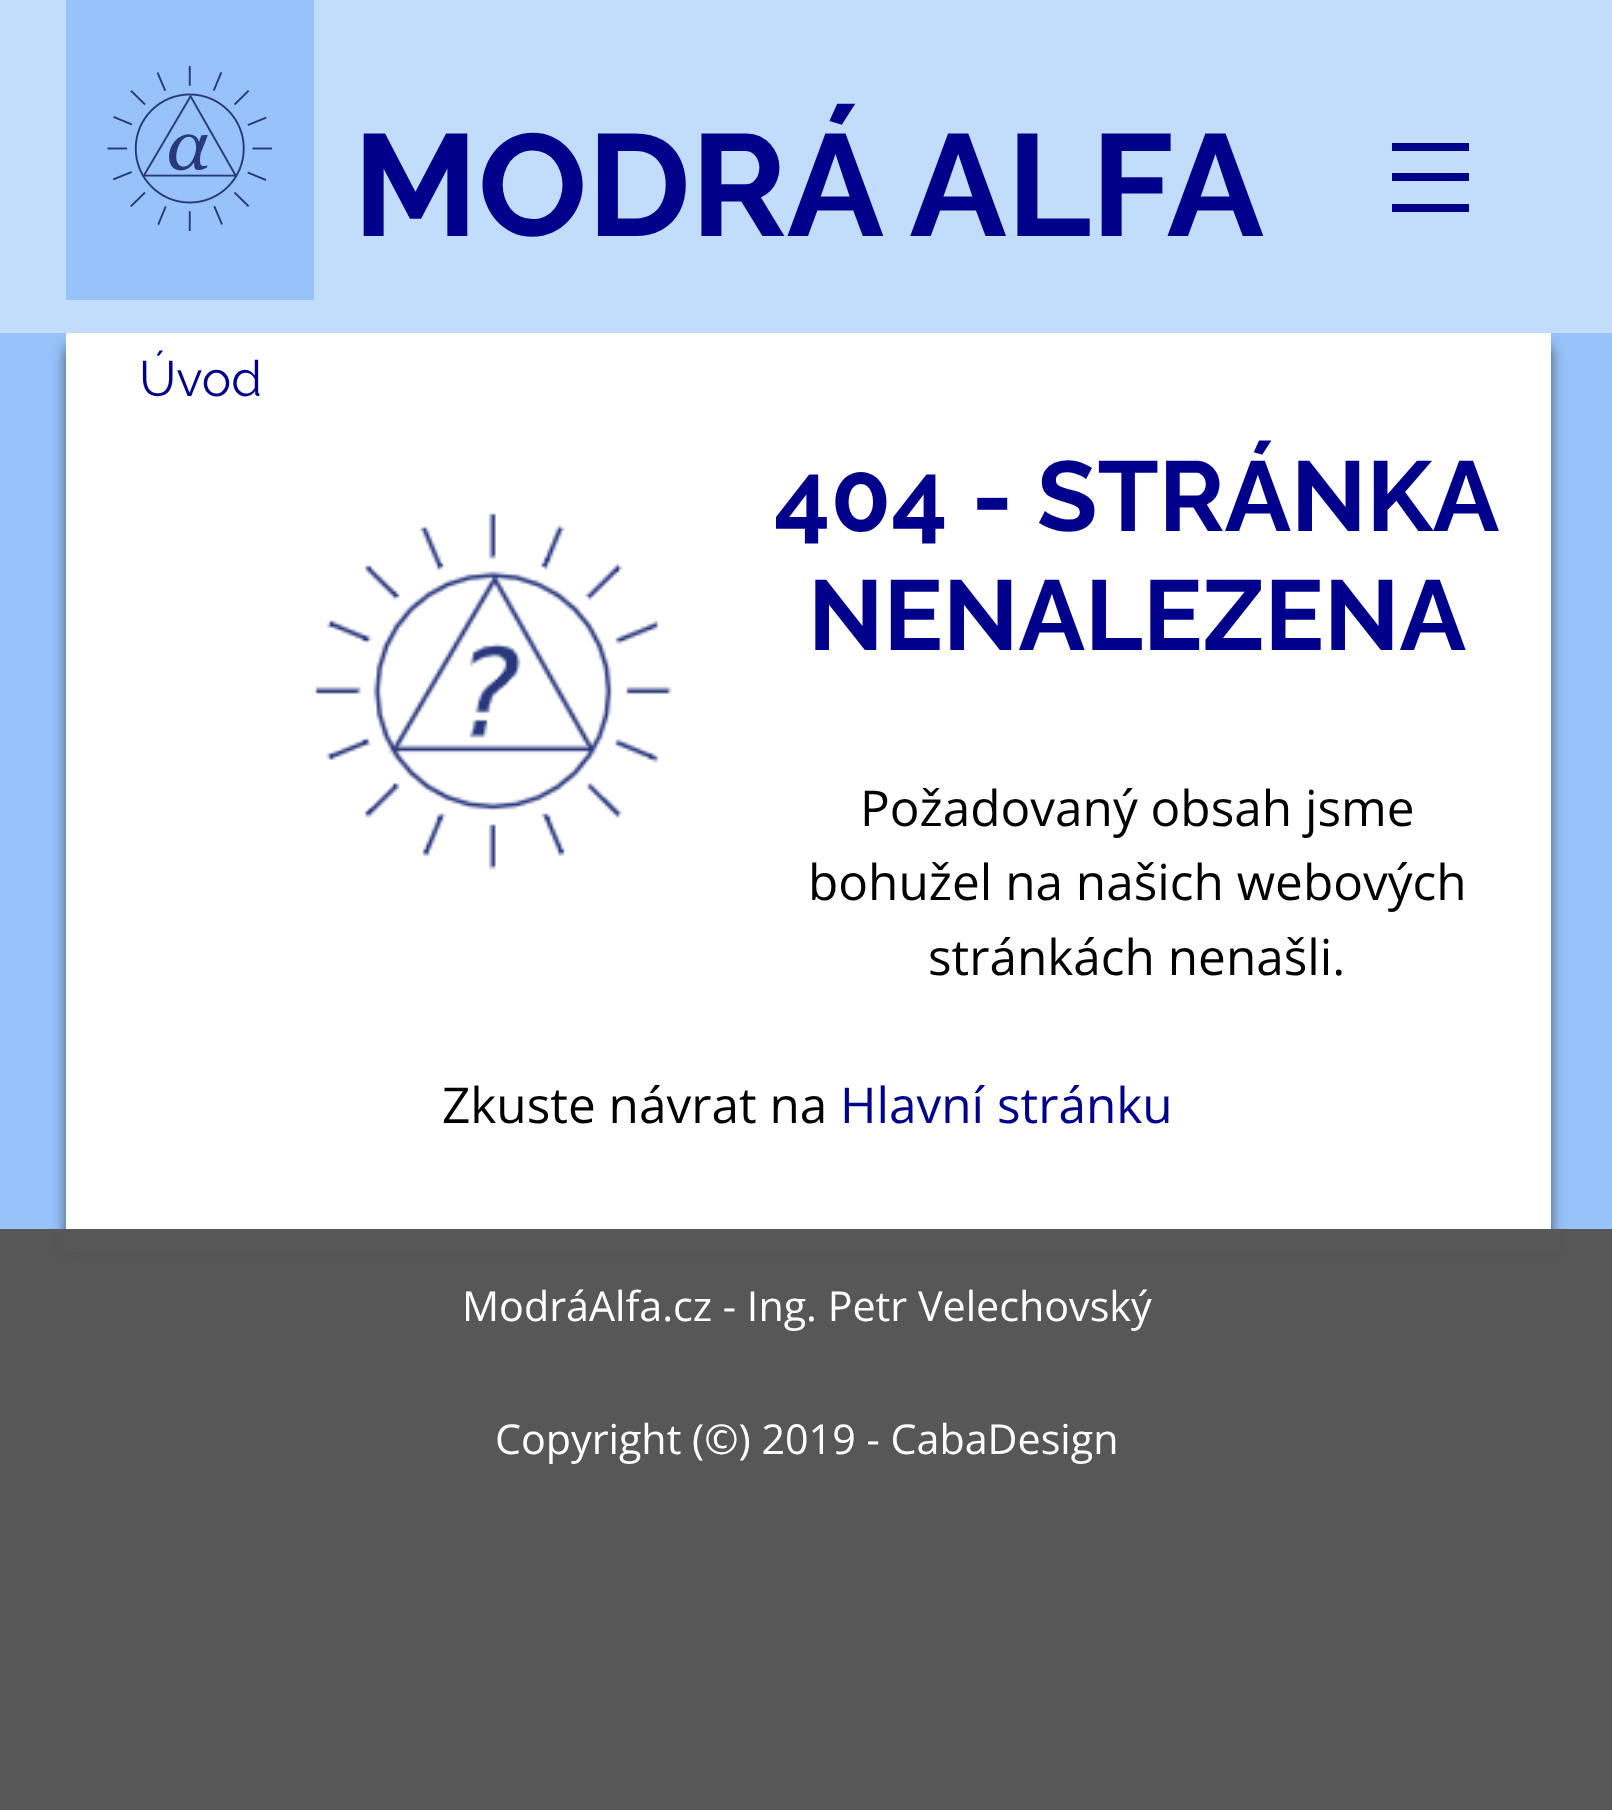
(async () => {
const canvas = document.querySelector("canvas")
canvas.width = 1612
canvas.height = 1810
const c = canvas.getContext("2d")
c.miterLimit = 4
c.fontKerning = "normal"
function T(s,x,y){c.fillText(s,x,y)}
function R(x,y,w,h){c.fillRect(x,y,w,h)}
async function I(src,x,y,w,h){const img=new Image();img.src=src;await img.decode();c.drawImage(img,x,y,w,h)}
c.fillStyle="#575757"
R(0,0,1612,1810)
c.fillStyle="#c2dcfc"
R(0,0,1612,333)
c.fillStyle="#97c3fa"
R(66,0,248,300)
await I("1.png",107,66,165,165)
c.font="bold 144.5px Raleway"
c.fillStyle="#00008b"
T("MODRÁ ALFA",353,236)
R(1392,143,77,8)
R(1392,173,77,8)
R(1392,204,77,8)
c.fillStyle="#97c3fa"
R(0,333,1612,896)
c.fillStyle="#323232bf"
c.filter="blur(7px)"
c.beginPath()
c.rect(66,347,1485,896)
c.fill()
c.filter="none"
c.fillStyle="#fff"
R(66,333,1485,896)
c.font="49.5px Raleway"
c.fillStyle="#00008b"
T("Úvod",139,396)
await I("2.png",315,513,357,357)
c.font="bold 99px Raleway"
T("404 - STRÁNKA",774,531)
T("NENALEZENA",808,650)
c.font="49.5px Open Sans"
c.fillStyle="#000"
T("Požadovaný obsah jsme",860,826)
T("bohužel na našich webových",808,900)
T("stránkách nenašli.",928,975)
T("Zkuste návrat na",442,1123)
c.fillStyle="#00008b"
T("Hlavní stránku",840,1123)
c.fillStyle="#575757"
R(57,1229,1503,23)
c.font="41.25px Open Sans"
c.fillStyle="#fff"
T("ModráAlfa.cz - Ing. Petr Velechovský",462,1321)
T("Copyright (©) 2019 - CabaDesign",495,1454)
})()
